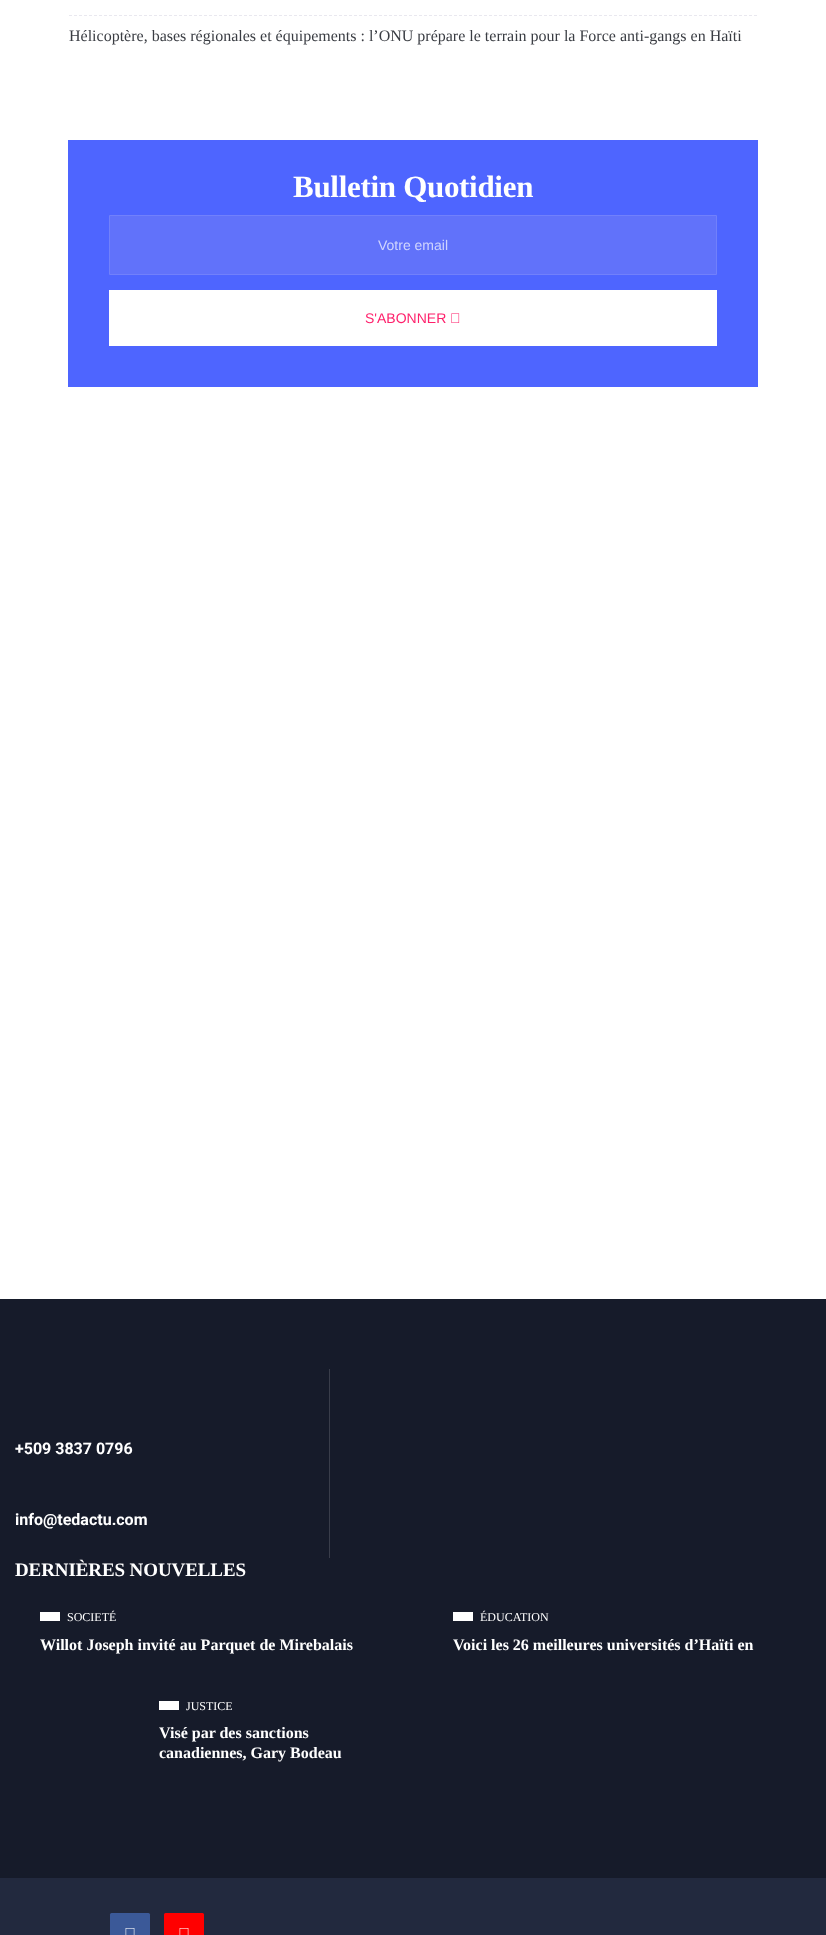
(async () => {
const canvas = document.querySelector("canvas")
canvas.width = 826
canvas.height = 1935
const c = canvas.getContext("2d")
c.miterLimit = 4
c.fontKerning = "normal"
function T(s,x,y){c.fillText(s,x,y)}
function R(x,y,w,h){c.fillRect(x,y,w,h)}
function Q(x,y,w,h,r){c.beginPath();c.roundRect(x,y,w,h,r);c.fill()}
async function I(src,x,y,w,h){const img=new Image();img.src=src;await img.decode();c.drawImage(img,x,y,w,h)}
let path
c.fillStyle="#fff"
R(0,0,826,1935)
path = new Path2D("M69 15.5h688")
c.strokeStyle="#e9e8ef"
c.setLineDash([3,2])
c.stroke(path)
c.font="16px Liberation Serif"
c.fillStyle="#3a3d43"
T("Hélicoptère, bases régionales et équipements : l’ONU prépare le terrain pour la Force anti-gangs en Haïti",69,41)
c.fillStyle="#4e65ff"
R(68,140,690,247)
c.letterSpacing="-0.3px"
c.font="bold 31px Liberation Serif"
c.fillStyle="#fff"
T("Bulletin Quotidien",293,197)
c.fillStyle="#6172fa"
c.beginPath()
c.rect(109.5,215.5,607,59)
c.fill()
c.strokeStyle="#7180fb"
c.setLineDash([])
c.stroke()
c.letterSpacing="0px"
c.font="14px Liberation Sans"
c.fillStyle="#d0d5fe"
T("Votre email",378,250)
c.fillStyle="#fff"
R(109,290,608,56)
c.fillStyle="#fe206b"
T("S'ABONNER",365,323)
await I("1.png",451,313,9,10)
c.fillStyle="#161b2a"
R(0,1299,826,579)
c.fillStyle="#393d4a"
R(329,1369,1,189)
c.font="bold 16px Roboto"
c.fillStyle="#fff"
T("+509 3837 0796",15,1454)
T("info@tedactu.com",15,1525)
c.letterSpacing="-0.1px"
c.font="bold 19px Liberation Serif"
T("DERNIÈRES NOUVELLES",15,1576)
R(40,1612,20,9)
c.letterSpacing="0px"
c.font="12px Liberation Serif"
T("SOCIETÉ",67,1621)
c.font="bold 16px Liberation Serif"
T("Willot Joseph invité au Parquet de Mirebalais",40,1650)
R(453,1612,20,9)
c.font="12px Liberation Serif"
T("ÉDUCATION",480,1621)
c.font="bold 16px Liberation Serif"
T("Voici les 26 meilleures universités d’Haïti en",453,1650)
R(159,1701,20,9)
c.font="12px Liberation Serif"
T("JUSTICE",186,1710)
c.font="bold 16px Liberation Serif"
T("Visé par des sanctions",159,1738)
T("canadiennes, Gary Bodeau",159,1758)
c.fillStyle="#22293e"
R(0,1878,826,57)
c.fillStyle="#3b5998"
Q(110,1913,40,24,1.5)
await I("2.png",125,1928,10,7)
c.fillStyle="#f00"
Q(164,1913,40,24,1.5)
await I("3.png",179,1928,10,7)
})()
